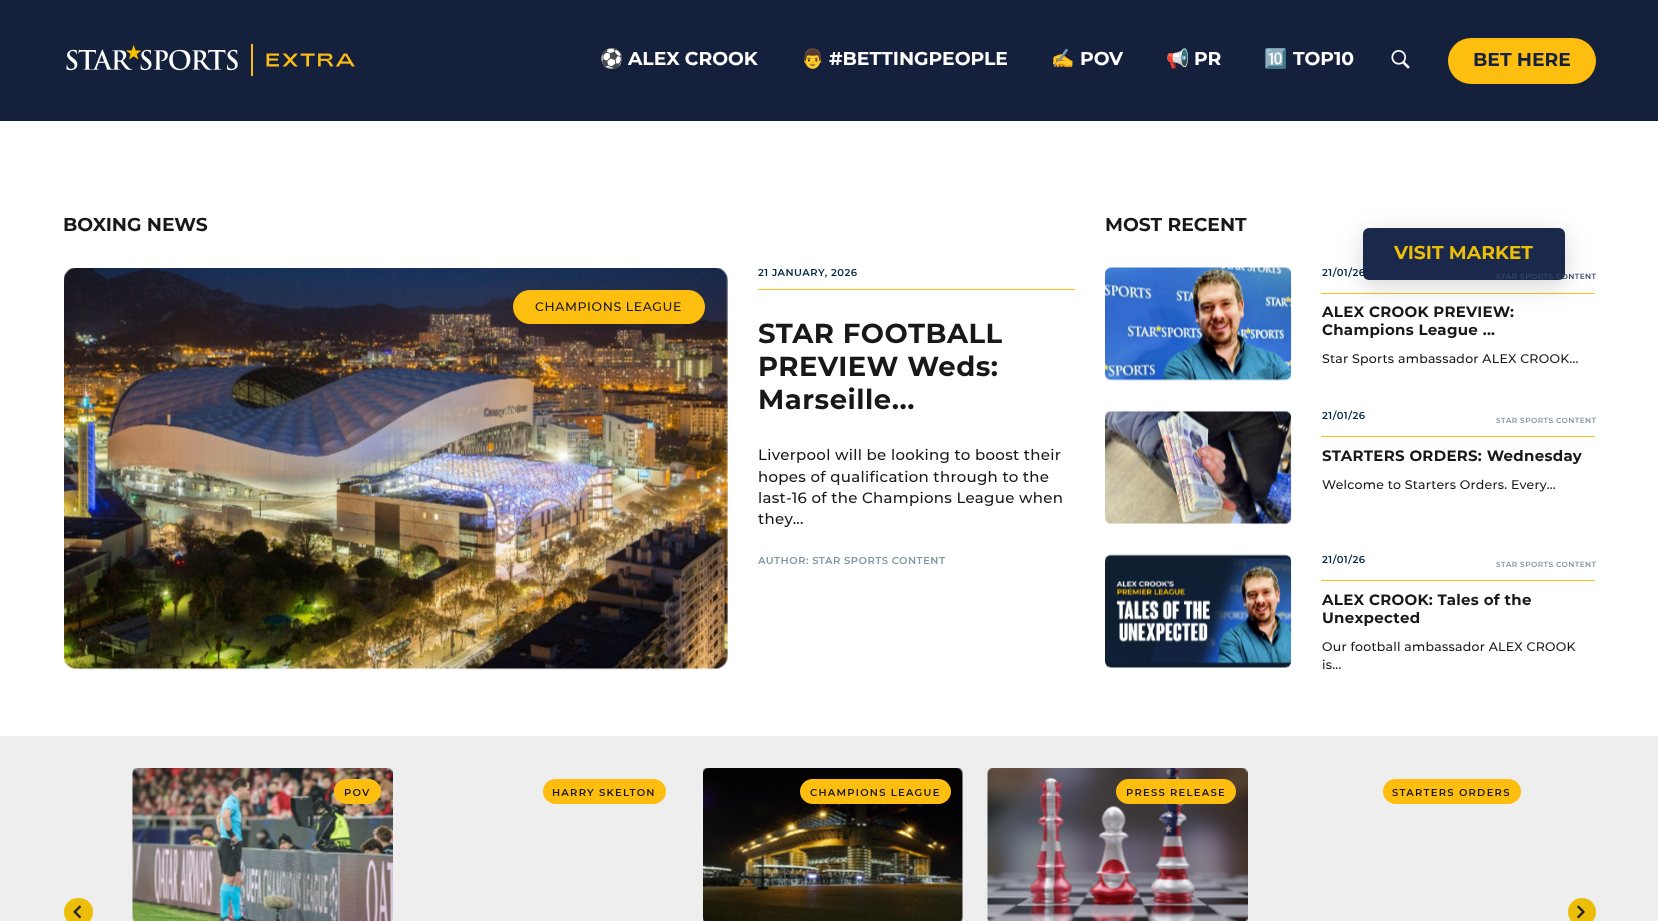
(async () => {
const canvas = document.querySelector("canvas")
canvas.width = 1658
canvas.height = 921
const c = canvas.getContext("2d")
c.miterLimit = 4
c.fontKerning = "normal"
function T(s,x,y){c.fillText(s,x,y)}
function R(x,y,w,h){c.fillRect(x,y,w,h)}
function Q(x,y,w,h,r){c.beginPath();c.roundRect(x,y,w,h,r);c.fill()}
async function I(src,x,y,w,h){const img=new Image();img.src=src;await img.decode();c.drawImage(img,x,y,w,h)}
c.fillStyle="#fff"
R(0,0,1658,921)
c.fillStyle="#15213c"
R(0,0,1658,121)
await I("1.png",66,44,289,32)
c.font="bold 18.75px Noto Color Emoji"
c.fillStyle="#fff"
T("⚽",600,65)
c.font="bold 18.75px Montserrat"
T("ALEX CROOK",628,65)
c.font="bold 18.75px Noto Color Emoji"
T("👨",801,65)
c.font="bold 18.75px Montserrat"
T("#BETTINGPEOPLE",829,65)
c.font="bold 18.75px Noto Color Emoji"
T("✍️",1051,65)
c.font="bold 18.75px Montserrat"
T("POV",1080,65)
c.font="bold 18.75px Noto Color Emoji"
T("📢",1166,65)
c.font="bold 18.75px Montserrat"
T("PR",1194,65)
c.font="bold 18.75px Noto Color Emoji"
T("🔟",1264,65)
c.font="bold 18.75px Montserrat"
T("TOP10",1293,65)
await I("2.png",1391,50,19,19)
c.fillStyle="#febe10"
Q(1448,38,148,46,23)
c.fillStyle="#15213c"
T("BET HERE",1473,66)
c.fillStyle="#181818"
T("BOXING NEWS",63,231)
await I("3.png",64,268,664,402)
c.fillStyle="#febe10"
Q(513,290,192,34,17)
c.letterSpacing="0.6px"
c.font="500 12.5px Montserrat"
c.fillStyle="#181818"
T("CHAMPIONS LEAGUE",535,311)
c.fillStyle="#febe10"
R(758,289,317,1)
c.letterSpacing="0.5px"
c.font="600 10px Montserrat"
c.fillStyle="#002845"
T("21 JANUARY, 2026",758,276)
c.font="bold 27.5px Montserrat"
c.fillStyle="#181818"
T("STAR FOOTBALL",758,343)
T("PREVIEW Weds:",758,376)
T("Marseille...",758,409)
c.letterSpacing="0.3px"
c.font="500 15px Montserrat"
T("Liverpool will be looking to boost their",758,460)
T("hopes of qualification through to the",758,482)
T("last-16 of the Champions League when",758,503)
T("they...",758,524)
c.letterSpacing="0.5px"
c.font="600 10px Montserrat"
c.fillStyle="#8094a2"
T("AUTHOR: STAR SPORTS CONTENT",758,564)
c.letterSpacing="0px"
c.font="bold 18.75px Montserrat"
c.fillStyle="#181818"
T("MOST RECENT",1105,231)
await I("4.png",1105,267,187,114)
c.fillStyle="#febe10"
R(1321,293,274,1)
c.letterSpacing="0.5px"
c.font="600 10px Montserrat"
c.fillStyle="#002845"
T("21/01/26",1322,276)
c.fillStyle="#00000029"
c.filter="blur(12.5px)"
c.beginPath()
c.roundRect(1363,234,202,52,6)
c.fill()
c.filter="none"
c.fillStyle="#1a294b"
Q(1363,228,202,52,6)
c.letterSpacing="0.4px"
c.font="600 7.5px Montserrat"
c.fillStyle="#314a64"
T("STAR SPORTS CONTENT",1496,279)
c.letterSpacing="0.3px"
c.font="bold 15px Montserrat"
c.fillStyle="#181818"
T("ALEX CROOK PREVIEW:",1322,317)
T("Champions League ...",1322,335)
c.letterSpacing="0.25px"
c.font="500 12.5px Montserrat"
T("Star Sports ambassador ALEX CROOK...",1322,363)
await I("5.png",1105,410,187,115)
c.fillStyle="#febe10"
R(1321,436,274,1)
c.letterSpacing="0.5px"
c.font="600 10px Montserrat"
c.fillStyle="#002845"
T("21/01/26",1322,419)
c.letterSpacing="0.4px"
c.font="600 7.5px Montserrat"
c.fillStyle="#8094a2"
T("STAR SPORTS CONTENT",1496,423)
c.letterSpacing="0.3px"
c.font="bold 15px Montserrat"
c.fillStyle="#181818"
T("STARTERS ORDERS: Wednesday",1322,461)
c.letterSpacing="0.25px"
c.font="500 12.5px Montserrat"
T("Welcome to Starters Orders. Every...",1322,489)
await I("6.png",1105,554,187,114)
c.fillStyle="#febe10"
R(1321,580,274,1)
c.letterSpacing="0.5px"
c.font="600 10px Montserrat"
c.fillStyle="#002845"
T("21/01/26",1322,563)
c.letterSpacing="0.4px"
c.font="600 7.5px Montserrat"
c.fillStyle="#8094a2"
T("STAR SPORTS CONTENT",1496,567)
c.letterSpacing="0.3px"
c.font="bold 15px Montserrat"
c.fillStyle="#181818"
T("ALEX CROOK: Tales of the",1322,605)
T("Unexpected",1322,623)
c.letterSpacing="0.25px"
c.font="500 12.5px Montserrat"
T("Our football ambassador ALEX CROOK",1322,651)
T("is...",1322,669)
c.letterSpacing="0px"
c.font="bold 18.75px Montserrat"
c.fillStyle="#ecbe09"
T("VISIT MARKET",1394,259)
c.fillStyle="#eee"
R(0,736,1658,185)
await I("7.png",132,768,261,153)
c.fillStyle="#febe10"
Q(334,779,47,25,12.5)
c.letterSpacing="1.25px"
c.font="600 10px Montserrat"
c.fillStyle="#181818"
T("POV",344,796)
c.fillStyle="#febe10"
Q(543,779,123,25,12.5)
c.fillStyle="#181818"
T("HARRY SKELTON",552,796)
await I("8.png",703,768,260,153)
c.fillStyle="#febe10"
Q(800,779,151,25,12.5)
c.fillStyle="#181818"
T("CHAMPIONS LEAGUE",810,796)
await I("9.png",987,768,261,153)
c.fillStyle="#febe10"
Q(1116,779,120,25,12.5)
c.fillStyle="#181818"
T("PRESS RELEASE",1126,796)
c.fillStyle="#febe10"
Q(1383,779,138,25,12.5)
c.fillStyle="#181818"
T("STARTERS ORDERS",1392,796)
c.fillStyle="#ecbe09"
Q(64,898,29,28,14)
await I("10.png",73,905,8,14)
c.beginPath()
c.arc(1582,912,14,0,7)
c.fill()
await I("11.png",1577,905,8,14)
})()
